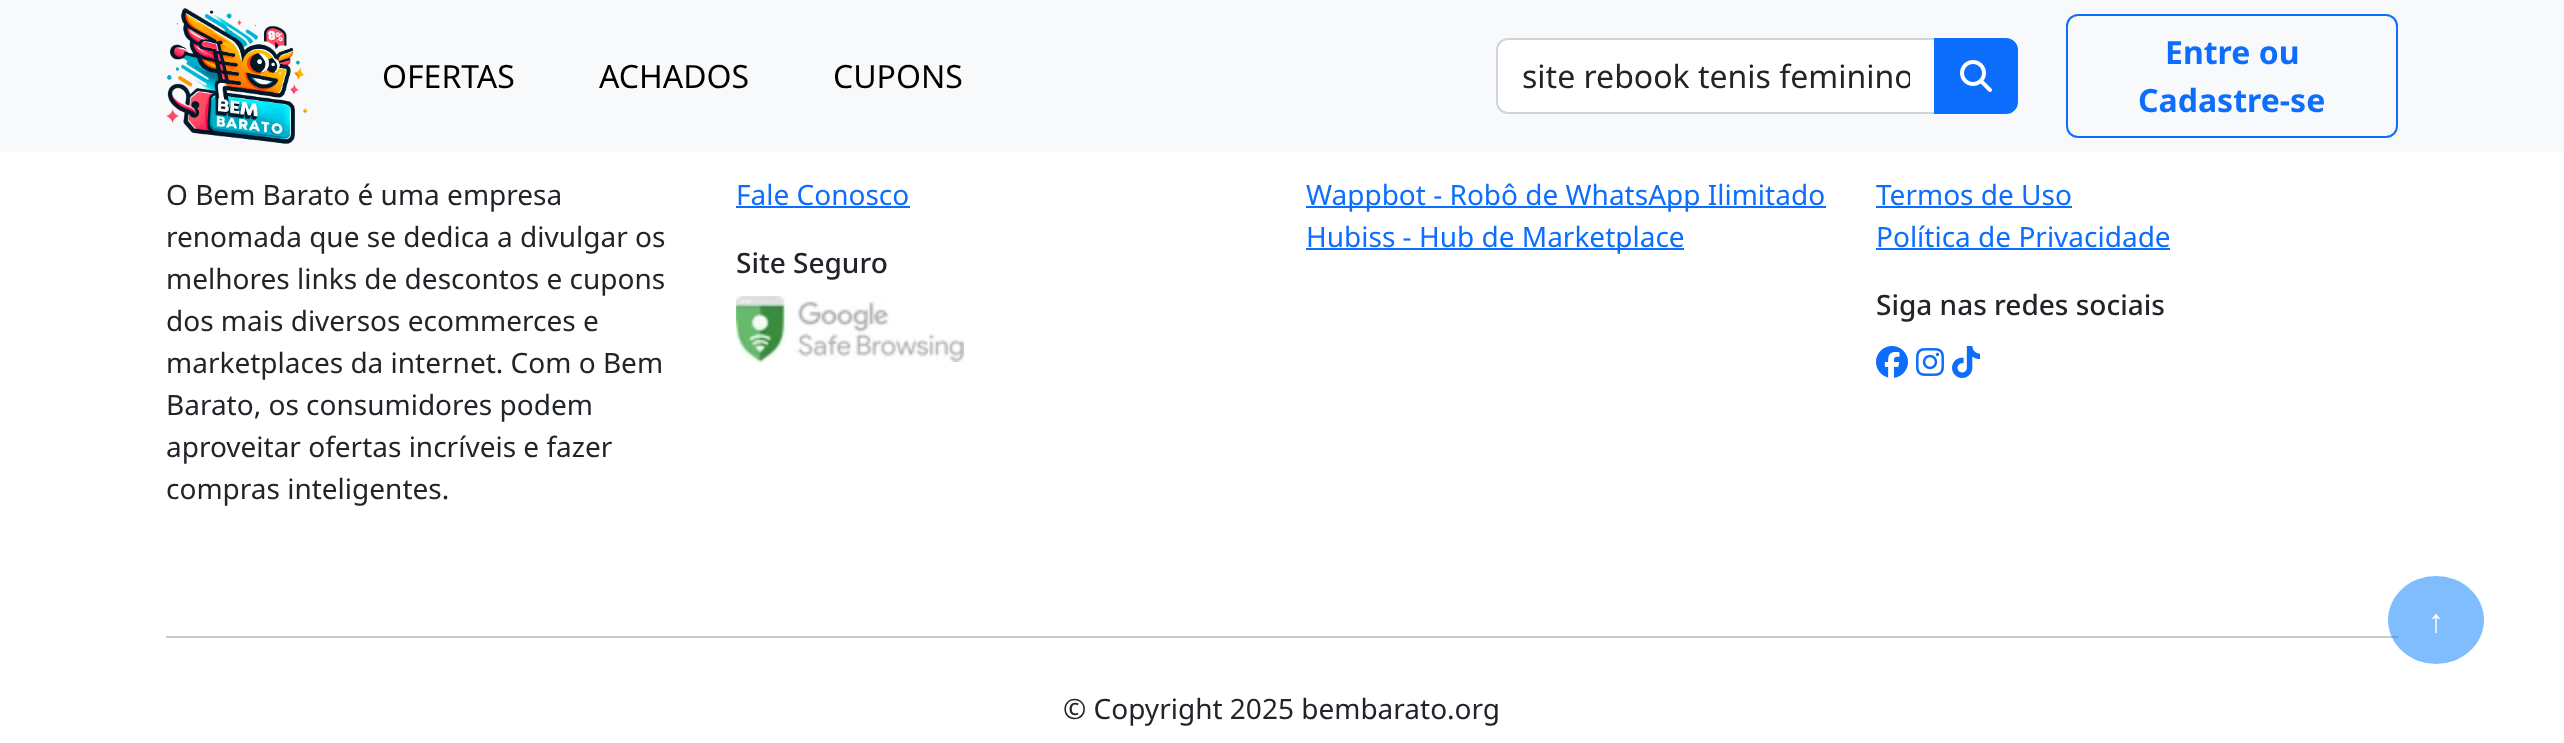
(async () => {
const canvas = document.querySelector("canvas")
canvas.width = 2564
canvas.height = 743
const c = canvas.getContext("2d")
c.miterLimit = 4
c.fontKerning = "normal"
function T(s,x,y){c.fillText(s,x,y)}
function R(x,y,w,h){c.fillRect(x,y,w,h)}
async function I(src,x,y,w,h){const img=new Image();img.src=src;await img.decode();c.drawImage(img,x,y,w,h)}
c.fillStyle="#fff"
R(0,0,2564,743)
c.fillStyle="#f8f9fa"
R(0,0,2564,152)
await I("1.png",166,8,142,136)
c.font="32px Noto Sans"
c.fillStyle="#000"
T("OFERTAS",382,88)
T("ACHADOS",599,88)
T("CUPONS",833,88)
c.fillStyle="#fff"
c.beginPath()
c.roundRect(1497,39,438,74,[11,0,0,11])
c.fill()
c.strokeStyle="#ced4da"
c.lineWidth=2
c.stroke()
c.save()
c.beginPath()
c.rect(1522,52,388,48)
c.clip()
c.fillStyle="#212529"
T("site rebook tenis feminino",1522,88)
c.restore()
c.fillStyle="#0d6efd"
c.beginPath()
c.roundRect(1935,39,82,74,[0,11,11,0])
c.fill()
c.strokeStyle="#0d6efd"
c.stroke()
await I("2.png",1960,60,32,32)
c.beginPath()
c.roundRect(2067,15,330,122,11)
c.stroke()
c.font="bold 32px Noto Sans"
T("Entre ou",2165,64)
T("Cadastre-se",2138,112)
c.font="28px Noto Sans"
c.fillStyle="#212529"
T("O Bem Barato é uma empresa",166,205)
T("renomada que se dedica a divulgar os",166,247)
T("melhores links de descontos e cupons",166,289)
T("dos mais diversos ecommerces e",166,331)
T("marketplaces da internet. Com o Bem",166,373)
T("Barato, os consumidores podem",166,415)
T("aproveitar ofertas incríveis e fazer",166,457)
T("compras inteligentes.",166,499)
c.fillStyle="#0d6efd"
T("Fale Conosco",736,205)
R(736,206,174,2)
c.font="500 28px Noto Sans"
c.fillStyle="#212529"
T("Site Seguro",736,273)
await I("3.png",736,296,228,66)
c.fillStyle="#0d6efd"
R(1306,206,520,2)
c.font="28px Noto Sans"
T("Wappbot - Robô de WhatsApp Ilimitado",1306,205)
R(1306,248,378,2)
T("Hubiss - Hub de Marketplace",1306,247)
T("Termos de Uso",1876,205)
R(1876,206,196,2)
T("Política de Privacidade",1876,247)
R(1876,248,294,2)
c.font="500 28px Noto Sans"
c.fillStyle="#212529"
T("Siga nas redes sociais",1876,315)
await I("4.png",1876,346,32,32)
await I("5.png",1916,348,28,28)
await I("6.png",1952,346,28,32)
c.fillStyle="#c8c9ca"
R(166,636,2232,2)
c.font="28px Noto Sans"
c.fillStyle="#212529"
T("© Copyright 2025 bembarato.org",1063,719)
c.fillStyle="#007bff80"
c.beginPath()
c.ellipse(2436,620,48,44,0,0,7)
c.fill()
c.font="32px Liberation Sans"
c.fillStyle="#fff"
T("↑",2428,632)
})()
